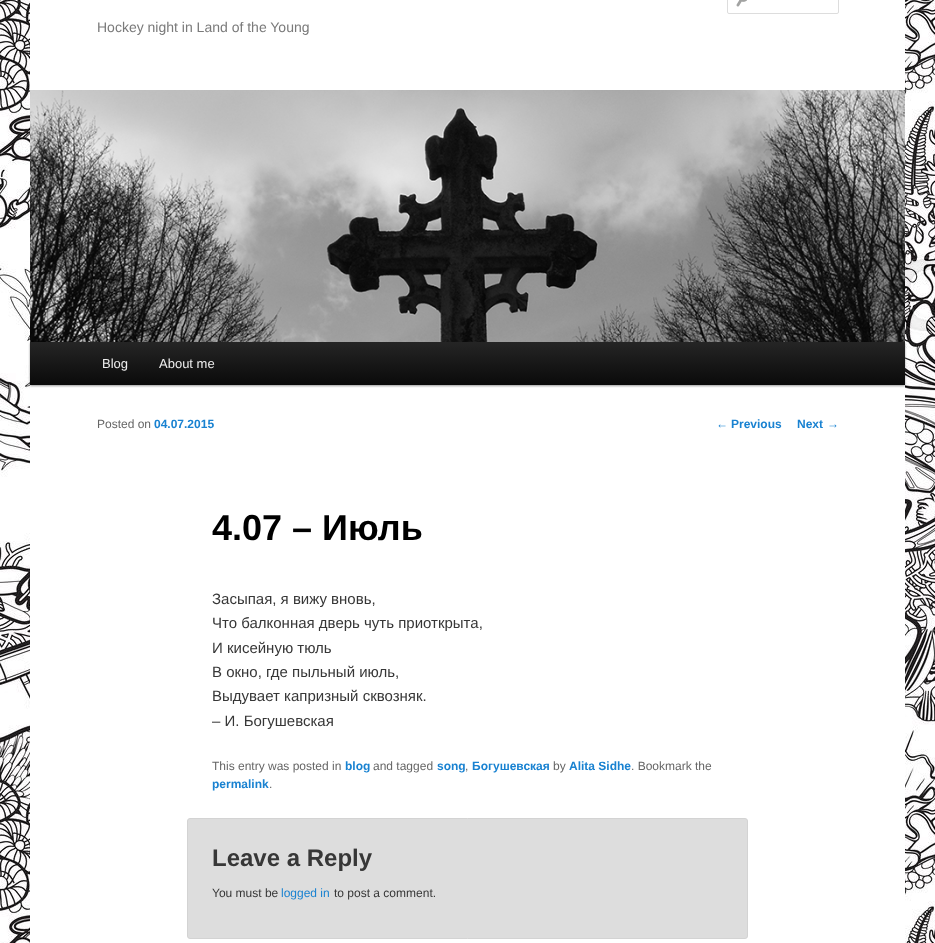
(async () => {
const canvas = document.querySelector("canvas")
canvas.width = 935
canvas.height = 943
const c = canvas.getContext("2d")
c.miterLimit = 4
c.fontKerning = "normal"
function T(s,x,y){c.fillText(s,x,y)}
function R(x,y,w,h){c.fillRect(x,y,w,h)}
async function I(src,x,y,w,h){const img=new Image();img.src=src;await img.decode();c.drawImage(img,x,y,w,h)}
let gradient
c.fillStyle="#fff"
R(0,0,935,943)
await I("1.png",0,0,935,943)
R(30,0,875,943)
await I("2.png",736,0,11,7)
c.beginPath()
c.roundRect(727.5,-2.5,111,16,1.5)
c.strokeStyle="#ddd"
c.stroke()
c.font="14px Liberation Sans"
c.fillStyle="#7a7a7a"
T("Hockey night in Land of the Young",97,32)
c.fillStyle="#00000066"
c.filter="blur(1px)"
c.beginPath()
c.rect(30,343,875,43)
c.fill()
c.filter="none"
await I("3.png",30,90,875,252)
gradient = c.createLinearGradient(468,342,468,385)
gradient.addColorStop(0,"#252525")
gradient.addColorStop(1,"#0a0a0a")
c.fillStyle = gradient
R(30,342,875,43)
c.font="13px Liberation Sans"
c.fillStyle="#eee"
T("Blog",102,368)
T("About me",159,368)
c.font="12px Liberation Sans"
c.fillStyle="#666"
T("Posted on",97,428)
c.font="bold 12px Liberation Sans"
c.fillStyle="#1982d1"
T("04.07.2015",154,428)
c.font="bold 36px Liberation Sans"
c.fillStyle="#000"
T("4.07 – Июль",212,540)
c.font="15px Liberation Sans"
c.fillStyle="#373737"
T("Засыпая, я вижу вновь,",212,604)
T("Что балконная дверь чуть приоткрыта,",212,628)
T("И кисейную тюль",212,653)
T("В окно, где пыльный июль,",212,677)
T("Выдувает капризный сквозняк.",212,701)
T("– И. Богушевская",212,726)
c.font="12px Liberation Sans"
c.fillStyle="#666"
T("This entry was posted in",212,770)
c.font="bold 12px Liberation Sans"
c.fillStyle="#1982d1"
T("blog",345,770)
c.font="12px Liberation Sans"
c.fillStyle="#666"
T("and tagged",373,770)
c.font="bold 12px Liberation Sans"
c.fillStyle="#1982d1"
T("song",437,770)
c.font="12px Liberation Sans"
c.fillStyle="#666"
T(",",465,770)
c.font="bold 12px Liberation Sans"
c.fillStyle="#1982d1"
T("Богушевская",472,770)
c.font="12px Liberation Sans"
c.fillStyle="#666"
T("by",553,770)
c.font="bold 12px Liberation Sans"
c.fillStyle="#1982d1"
T("Alita Sidhe",569,770)
c.font="12px Liberation Sans"
c.fillStyle="#666"
T(". Bookmark the",631,770)
c.font="bold 12px Liberation Sans"
c.fillStyle="#1982d1"
T("permalink",212,788)
c.font="12px Liberation Sans"
c.fillStyle="#666"
T(".",269,788)
c.fillStyle="#1982d1"
T("←",716,428)
c.font="bold 12px Liberation Sans"
T("Previous",731,428)
T("Next",797,428)
c.font="12px Liberation Sans"
T("→",827,428)
c.fillStyle="#ddd"
c.beginPath()
c.roundRect(187.5,818.5,560,120,2.5)
c.fill()
c.strokeStyle="#d3d3d3"
c.stroke()
c.font="bold 24px Liberation Sans"
c.fillStyle="#373737"
T("Leave a Reply",212,866)
c.font="12px Liberation Sans"
T("You must be",212,897)
c.fillStyle="#1982d1"
T("logged in",281,897)
c.fillStyle="#373737"
T("to post a comment.",334,897)
})()
